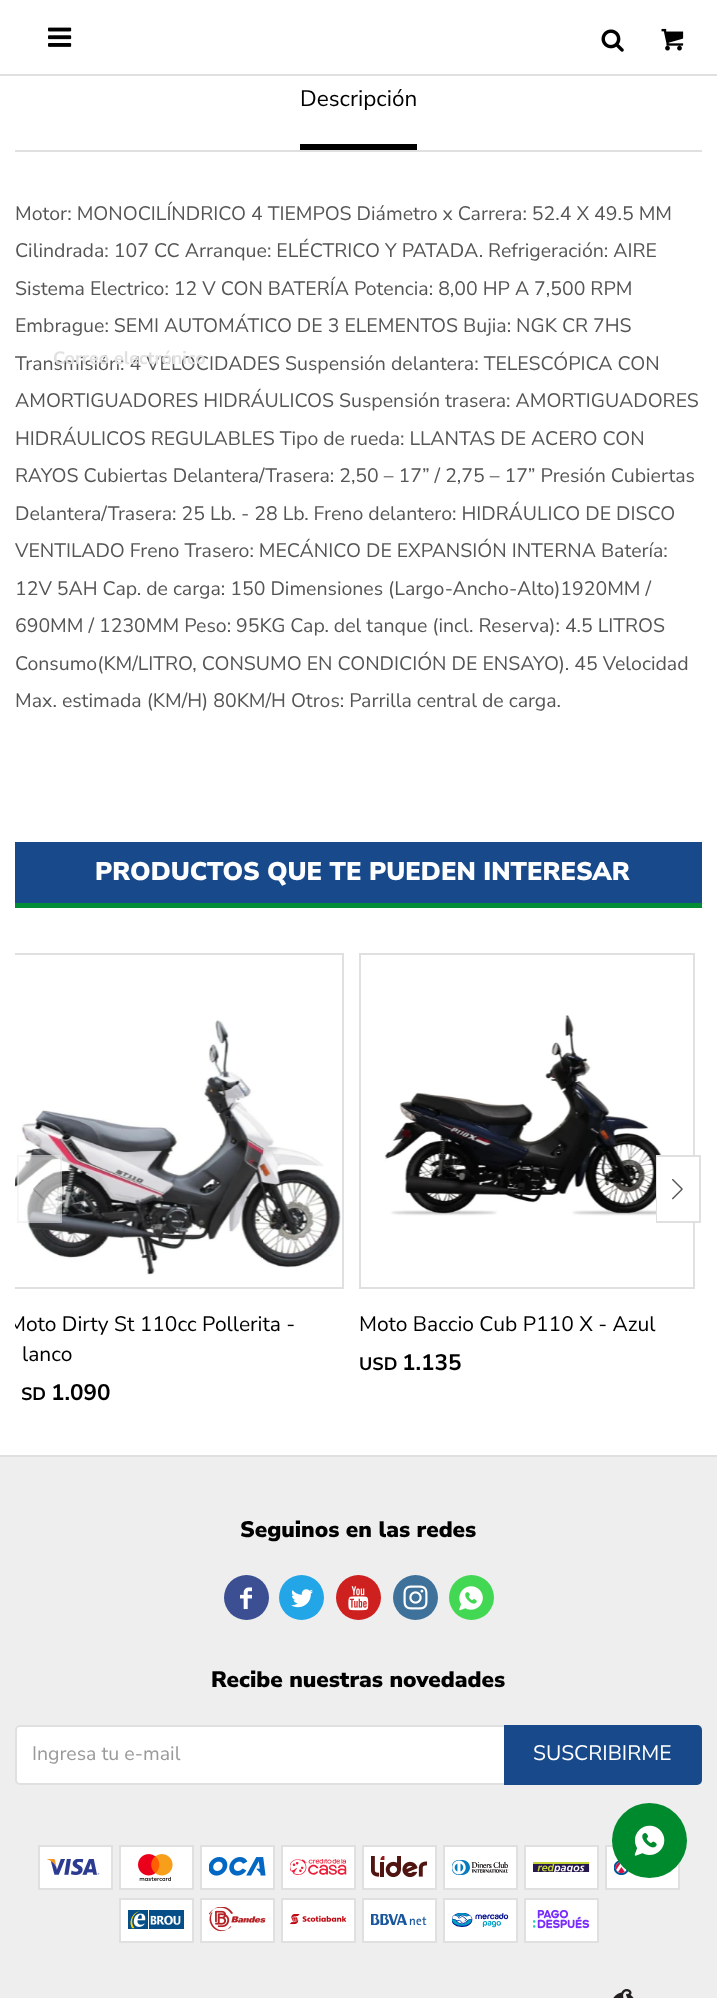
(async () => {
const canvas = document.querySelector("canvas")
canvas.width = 717
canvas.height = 1998
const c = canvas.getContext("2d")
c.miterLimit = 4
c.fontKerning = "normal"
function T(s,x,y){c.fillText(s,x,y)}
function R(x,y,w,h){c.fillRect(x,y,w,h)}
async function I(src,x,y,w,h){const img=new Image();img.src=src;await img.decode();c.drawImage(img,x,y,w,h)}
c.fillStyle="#fff"
R(0,0,717,1998)
await I("1.png",48,27,24,20)
await I("2.png",601,29,23,23)
await I("3.png",661,28,23,23)
c.fillStyle="#e0e0e0"
R(0,74,717,2)
R(15,150,687,2)
c.fillStyle="#000"
R(300,144,117,6)
c.font="22.5px Nunito Sans"
T("Descripción",300,106)
c.font="19.5px Nunito Sans"
c.fillStyle="#555"
T("Motor: MONOCILÍNDRICO 4 TIEMPOS Diámetro x Carrera: 52.4 X 49.5 MM",15,220)
T("Cilindrada: 107 CC Arranque: ELÉCTRICO Y PATADA. Refrigeración: AIRE",15,257)
T("Sistema Electrico: 12 V CON BATERÍA Potencia: 8,00 HP A 7,500 RPM",15,295)
T("Embrague: SEMI AUTOMÁTICO DE 3 ELEMENTOS Bujia: NGK CR 7HS",15,332)
T("Transmisión: 4 VELOCIDADES Suspensión delantera: TELESCÓPICA CON",15,370)
T("AMORTIGUADORES HIDRÁULICOS Suspensión trasera: AMORTIGUADORES",15,407)
T("HIDRÁULICOS REGULABLES Tipo de rueda: LLANTAS DE ACERO CON",15,445)
T("RAYOS Cubiertas Delantera/Trasera: 2,50 – 17” / 2,75 – 17” Presión Cubiertas",15,482)
T("Delantera/Trasera: 25 Lb. - 28 Lb. Freno delantero: HIDRÁULICO DE DISCO",15,520)
T("VENTILADO Freno Trasero: MECÁNICO DE EXPANSIÓN INTERNA Batería:",15,557)
T("12V 5AH Cap. de carga: 150 Dimensiones (Largo-Ancho-Alto)1920MM /",15,595)
T("690MM / 1230MM Peso: 95KG Cap. del tanque (incl. Reserva): 4.5 LITROS",15,632)
T("Consumo(KM/LITRO, CONSUMO EN CONDICIÓN DE ENSAYO). 45 Velocidad",15,670)
T("Max. estimada (KM/H) 80KM/H Otros: Parrilla central de carga.",15,707)
c.font="bold 18px Nunito Sans"
c.fillStyle="#e1e1e1"
T("Correo electrónico",53,364)
c.fillStyle="#17498b"
R(15,842,687,61)
c.fillStyle="#008d36"
R(15,903,687,5)
c.font="900 25.5px Nunito Sans"
c.fillStyle="#fff"
T("PRODUCTOS QUE TE PUEDEN INTERESAR",95,880)
await I("6.png",15,1020,326,255)
c.save()
c.beginPath()
c.rect(15,953,687,472)
c.clip()
c.strokeStyle="#e0e0e0"
c.lineWidth=2
c.strokeRect(9,954,334,334)
c.restore()
c.fillStyle="#ffffff59"
R(17,1155,45,68)
c.strokeStyle="#e0e0e059"
c.lineWidth=2
c.strokeRect(18,1156,43,66)
R(18,1157,42,64)
await I("4.png",33,1179,11,21)
await I("7.png",384,1015,294,201)
c.strokeStyle="#e0e0e0"
c.strokeRect(360,954,334,334)
c.strokeRect(657,1156,43,66)
c.fillStyle="#fff"
R(657,1157,38,64)
await I("5.png",672,1178,11,22)
c.save()
c.beginPath()
c.rect(15,953,687,472)
c.clip()
c.font="21px Nunito Sans"
c.fillStyle="#000"
T("Moto Dirty St 110cc Pollerita -",8,1331)
c.restore()
c.font="21px Nunito Sans"
c.fillStyle="#000"
T("lanco",22,1361)
c.font="bold 18px Nunito Sans"
T("SD",21,1400)
c.font="bold 22.5px Nunito Sans"
T("1.090",51,1400)
c.font="21px Nunito Sans"
T("Moto Baccio Cub P110 X - Azul",359,1331)
c.font="bold 18px Nunito Sans"
T("USD",359,1370)
c.font="bold 22.5px Nunito Sans"
T("1.135",402,1370)
c.fillStyle="#eee"
R(0,1457,717,541)
c.fillStyle="#e0e0e0"
R(0,1455,717,2)
c.font="900 22.5px Nunito Sans"
c.fillStyle="#000"
T("Seguinos en las redes",240,1537)
c.fillStyle="#3b4f92"
c.beginPath()
c.arc(246.5,1597.5,22.5,0,7)
c.fill()
await I("8.png",240,1587,12,23)
c.fillStyle="#22a6e7"
c.beginPath()
c.arc(301.5,1597.5,22.5,0,7)
c.fill()
await I("9.png",291,1589,22,19)
c.fillStyle="#cd201f"
c.beginPath()
c.arc(358.5,1597.5,22.5,0,7)
c.fill()
await I("10.png",348,1586,21,25)
c.fillStyle="#3f729b"
c.beginPath()
c.arc(415.5,1597.5,22.5,0,7)
c.fill()
await I("11.png",403,1585,25,25)
c.fillStyle="#43d854"
c.beginPath()
c.arc(471.5,1597.5,22.5,0,7)
c.fill()
await I("12.png",459,1586,24,25)
c.fillStyle="#000"
T("Recibe nuestras novedades",211,1687)
c.fillStyle="#fff"
c.beginPath()
c.roundRect(16,1726,685,58,4)
c.fill()
c.stroke()
c.font="19.5px Nunito Sans"
c.fillStyle="#999"
T("Ingresa tu e-mail",32,1760)
c.fillStyle="#17498b"
c.beginPath()
c.roundRect(504,1725,198,60,[0,5,5,0])
c.fill()
c.font="21px Nunito Sans"
c.fillStyle="#fff"
T("SUSCRIBIRME",533,1760)
c.beginPath()
c.rect(39,1846,73,43)
c.fill()
c.stroke()
await I("13.png",47,1859,53,16)
c.beginPath()
c.rect(120,1846,73,43)
c.fill()
c.stroke()
await I("14.png",138,1854,35,27)
c.beginPath()
c.rect(201,1846,73,43)
c.fill()
c.stroke()
await I("15.png",209,1857,57,19)
c.beginPath()
c.rect(282,1846,73,43)
c.fill()
c.stroke()
await I("16.png",290,1859,57,16)
c.beginPath()
c.rect(363,1846,73,43)
c.fill()
c.stroke()
await I("17.png",371,1856,57,22)
c.beginPath()
c.rect(444,1846,73,43)
c.fill()
c.stroke()
await I("18.png",452,1860,57,15)
c.beginPath()
c.rect(525,1846,73,43)
c.fill()
c.stroke()
await I("19.png",533,1862,57,10)
c.beginPath()
c.rect(606,1846,73,43)
c.fill()
c.stroke()
await I("20.png",614,1860,56,15)
c.beginPath()
c.rect(120,1899,73,43)
c.fill()
c.stroke()
await I("21.png",128,1910,56,19)
c.beginPath()
c.rect(201,1899,73,43)
c.fill()
c.stroke()
await I("22.png",209,1907,57,25)
c.beginPath()
c.rect(282,1899,73,43)
c.fill()
c.stroke()
await I("23.png",290,1914,57,11)
c.beginPath()
c.rect(363,1899,73,43)
c.fill()
c.stroke()
await I("24.png",371,1914,56,11)
c.beginPath()
c.rect(444,1899,73,43)
c.fill()
c.stroke()
await I("25.png",452,1913,57,15)
c.beginPath()
c.rect(525,1899,73,43)
c.fill()
c.stroke()
await I("26.png",533,1910,57,19)
await I("27.png",613,1989,21,9)
c.fillStyle="#008a2e"
c.beginPath()
c.arc(649.5,1840.5,37.5,0,7)
c.fill()
await I("28.png",634,1825,31,31)
})()
